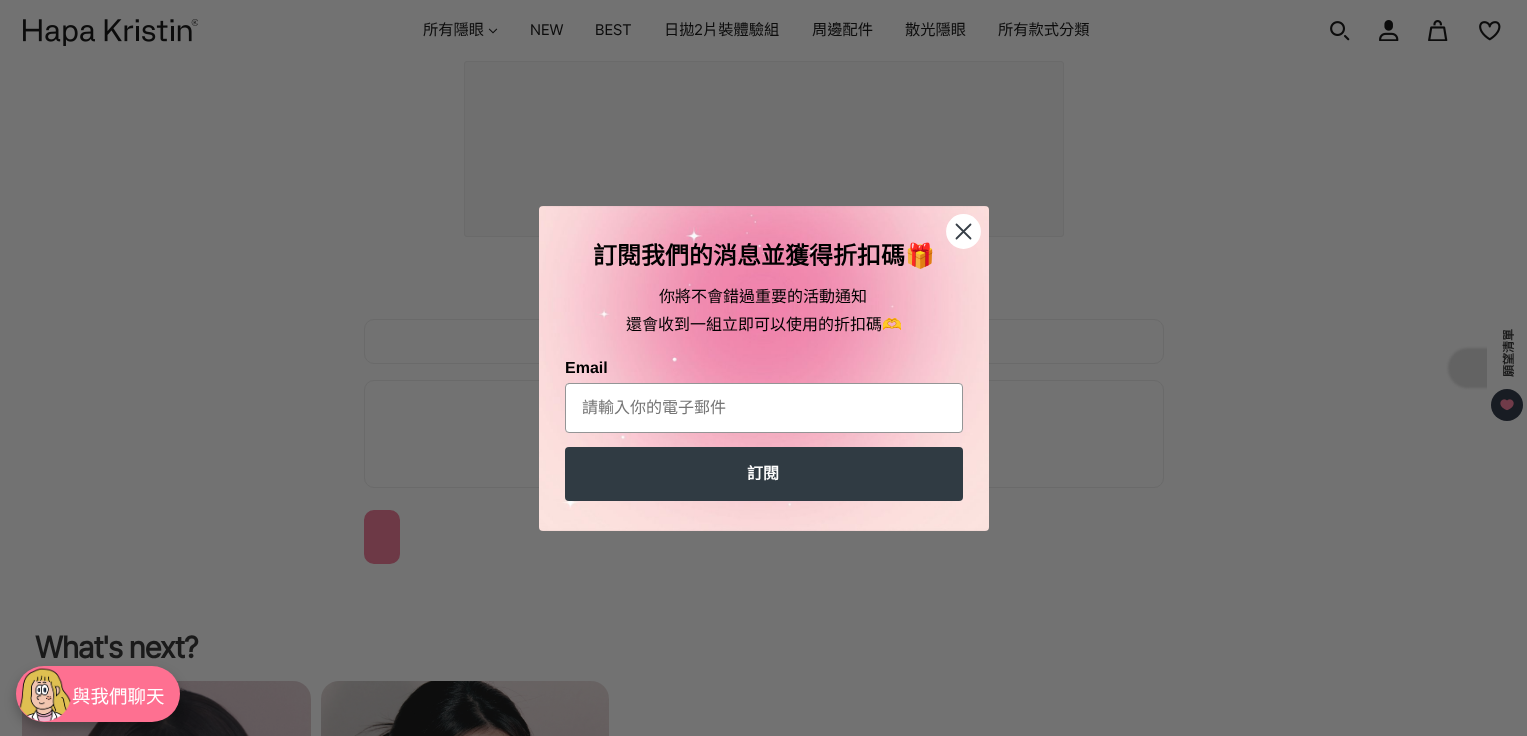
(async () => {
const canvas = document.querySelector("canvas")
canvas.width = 1527
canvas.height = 736
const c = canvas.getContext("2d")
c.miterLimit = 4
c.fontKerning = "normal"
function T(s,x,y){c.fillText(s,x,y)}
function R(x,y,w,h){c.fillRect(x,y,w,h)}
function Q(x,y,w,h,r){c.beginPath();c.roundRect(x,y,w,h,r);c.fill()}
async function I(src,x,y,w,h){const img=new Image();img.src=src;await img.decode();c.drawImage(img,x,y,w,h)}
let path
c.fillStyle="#727272"
R(0,0,1527,736)
await I("1.png",23,19,175,27)
c.font="15.25px Noto Sans CJK TC"
c.fillStyle="#0c0c0c"
T("所有隱眼",423,35)
await I("2.png",488,28,10,6)
c.font="15.25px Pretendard"
T("NEW",530,35)
T("BEST",595,35)
c.font="15.25px Noto Sans CJK TC"
T("日拋",664,35)
c.font="15.25px Pretendard"
T("2",694,35)
c.font="15.25px Noto Sans CJK TC"
T("片裝體驗組",703,35)
T("周邊配件",812,35)
T("散光隱眼",905,35)
T("所有款式分類",998,35)
await I("3.png",1330,21,20,20)
await I("4.png",1379,20,20,21)
await I("5.png",1428,20,20,21)
await I("6.png",1479,21,22,20)
c.fillStyle="#6f6f6f"
c.beginPath()
c.roundRect(464.5,61.5,599,175,2.5)
c.fill()
c.strokeStyle="#6a6a6a"
c.stroke()
c.beginPath()
c.roundRect(364.5,319.5,391,44,9.5)
c.stroke()
c.beginPath()
c.roundRect(772.5,319.5,391,44,9.5)
c.stroke()
c.beginPath()
c.roundRect(364.5,380.5,799,107,9.5)
c.stroke()
c.fillStyle="#6d3946"
c.beginPath()
c.roundRect(365,511,34,52,9)
c.fill()
c.strokeStyle="#6d3946"
c.lineWidth=2
c.stroke()
c.letterSpacing="-1px"
c.font="bold 30.5px Pretendard"
c.fillStyle="#1a1a1a"
T("What's next?",35,658)
await I("7.png",22,681,289,55)
await I("8.png",321,681,288,55)
await I("9.png",539,206,450,325)
c.fillStyle="#fff"
c.beginPath()
c.arc(963.5,231.5,16.5,0,7)
c.fill()
c.strokeStyle="#fff"
c.lineWidth=1.8
c.stroke()
path = new Path2D("M956.5 224.5l14 14m-14 0l14-14z")
c.strokeStyle="#373f47"
c.lineCap="round"
c.lineJoin="round"
c.stroke(path)
c.letterSpacing="0px"
c.font="bold 24px Noto Sans CJK TC"
c.fillStyle="#000"
T("訂閱我們的消息並獲得折扣碼",593,264)
c.font="24px Noto Color Emoji"
T("🎁",905,264)
c.font="16px Noto Sans CJK TC"
T("你將不會錯過重要的活動通知",659,302)
T("還會收到一組立即可以使用的折扣碼",626,330)
c.font="16px Noto Color Emoji"
T("🫶",882,330)
c.font="bold 16px Liberation Sans"
T("Email",565,373)
c.fillStyle="#fff"
c.beginPath()
c.roundRect(565.5,383.5,397,49,3.5)
c.fill()
c.strokeStyle="#949596"
c.lineWidth=1
c.lineJoin="miter"
c.stroke()
c.font="16px Noto Sans CJK TC"
c.fillStyle="#767676"
T("請輸入你的電子郵件",582,413)
c.fillStyle="#303b43"
Q(565,447,398,54,4)
c.font="bold 16px Noto Sans CJK TC"
c.fillStyle="#fff"
T("訂閱",747,479)
c.save()
c.beginPath()
c.rect(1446,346,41,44)
c.clip()
c.fillStyle="#636363"
c.filter="blur(1px)"
c.beginPath()
c.roundRect(1448,348,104,40,22)
c.fill()
c.filter="none"
c.restore()
c.font="bold 12px Noto Sans CJK TC"
c.fillStyle="#1a1a1a"
c.save()
c.translate(1513,377)
c.rotate(-90 * Math.PI / 180)
c.fillText("願望清單",0,0)
c.restore()
c.fillStyle="#181c23"
c.beginPath()
c.arc(1507,405,16,0,7)
c.fill()
await I("10.png",1500,399,14,12)
c.fillStyle="#00000040"
c.filter="blur(6px)"
c.beginPath()
c.roundRect(16,672,164,56,28)
c.fill()
c.filter="none"
c.fillStyle="#fe7091"
Q(16,666,164,56,28)
await I("11.png",19,668,52,54)
c.font="18.5px Noto Sans CJK TC"
c.fillStyle="#fff"
T("與我們聊天",72,703)
})()
